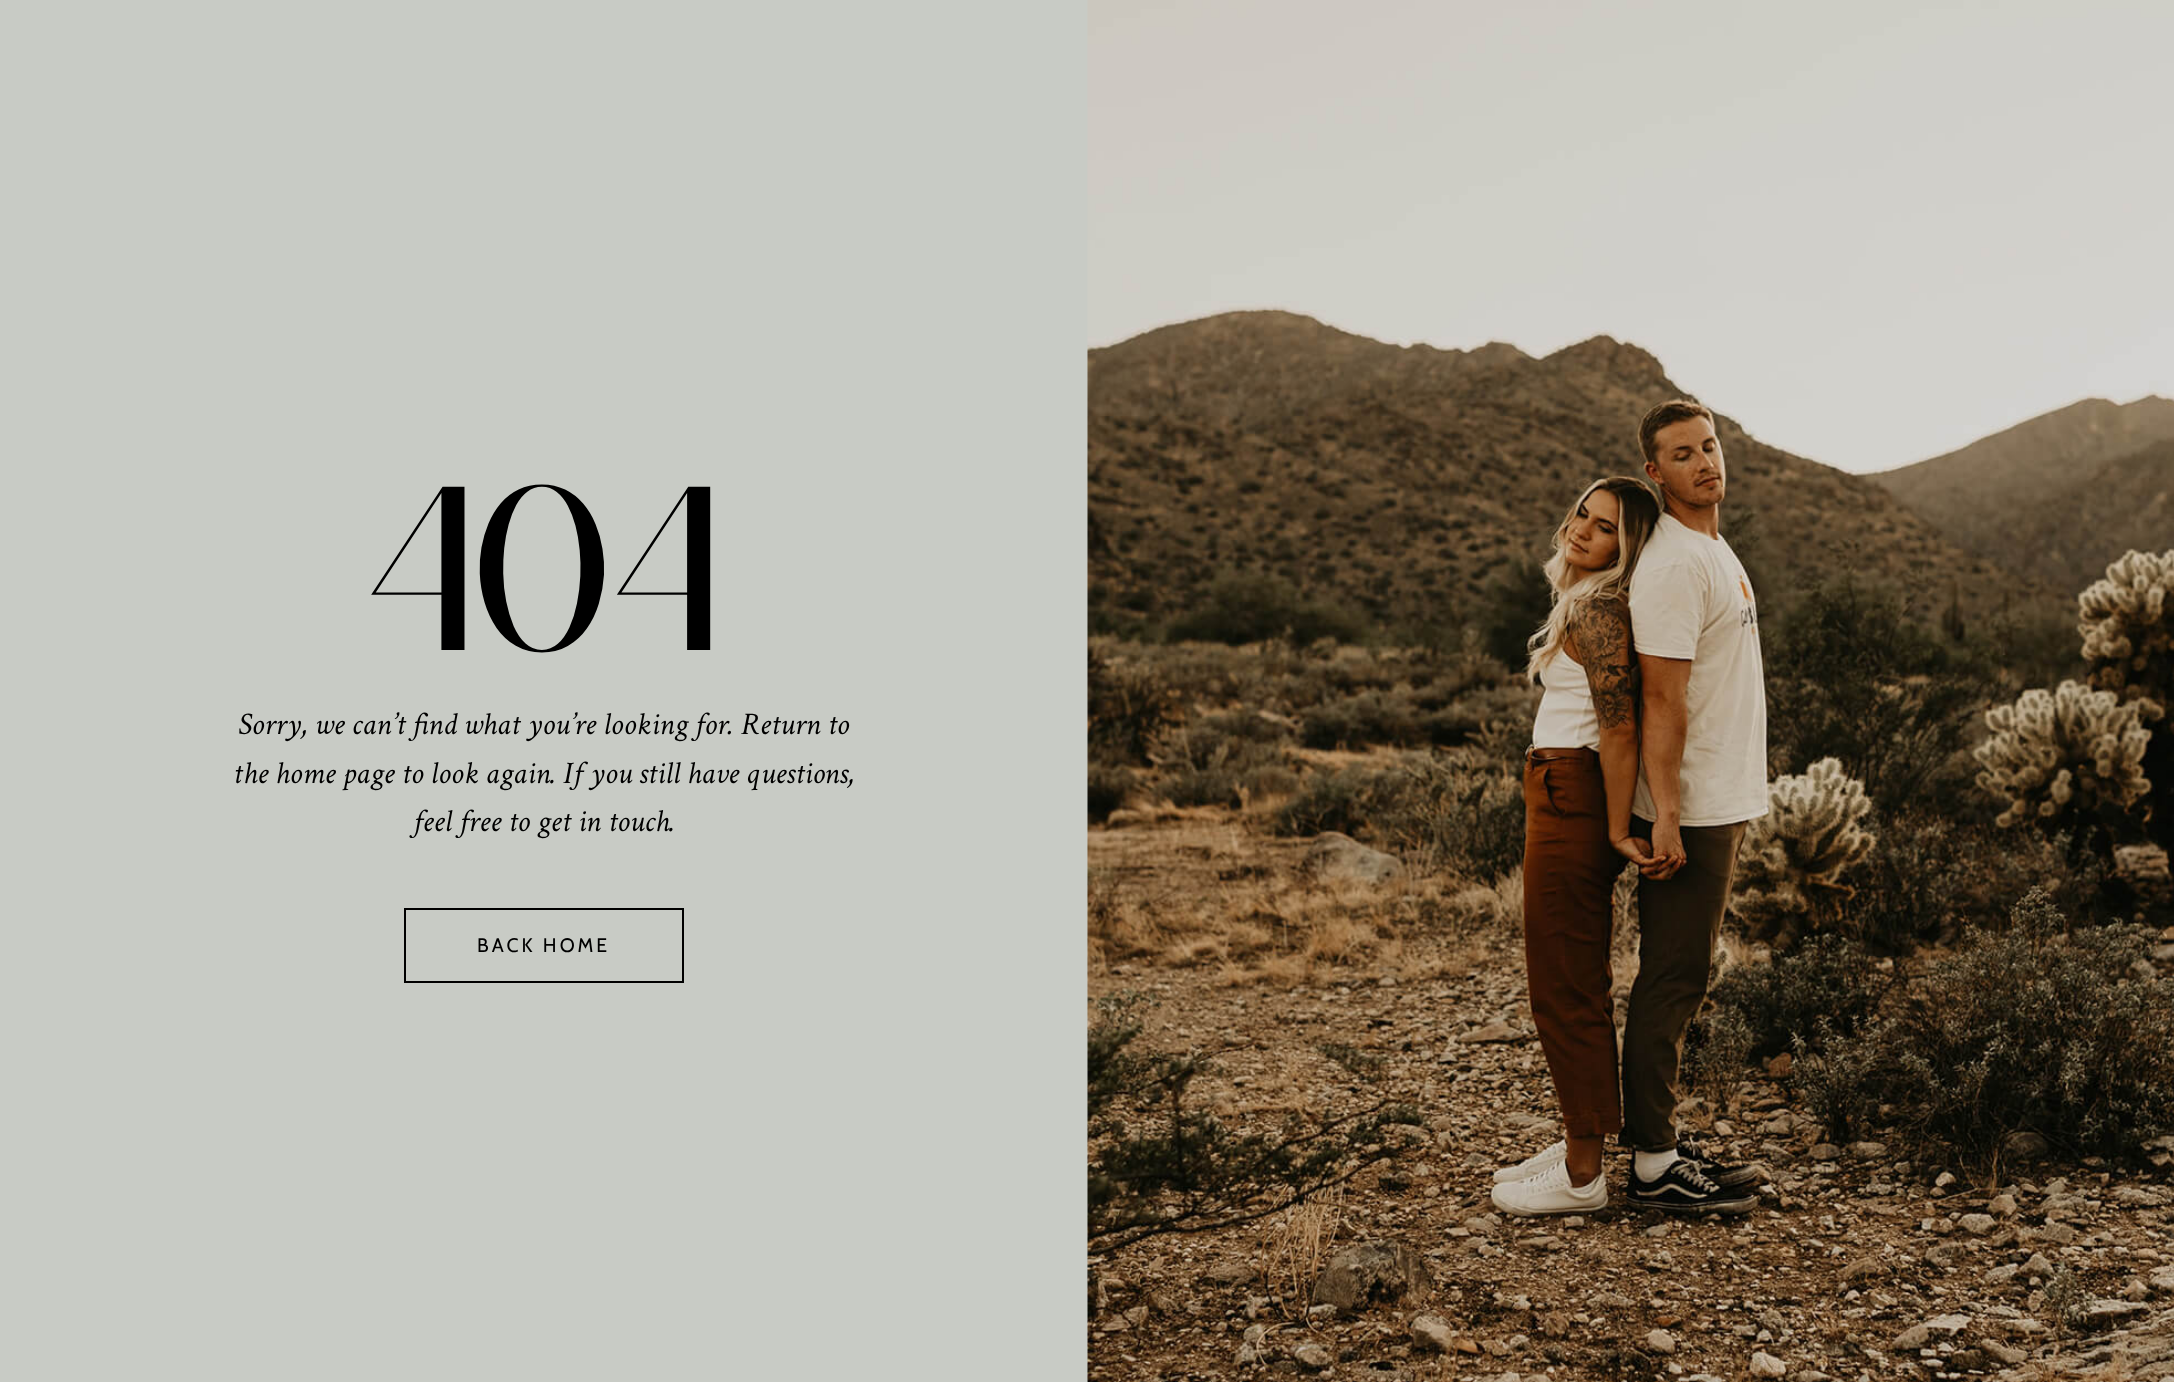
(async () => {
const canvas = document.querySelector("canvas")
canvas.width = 2174
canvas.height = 1382
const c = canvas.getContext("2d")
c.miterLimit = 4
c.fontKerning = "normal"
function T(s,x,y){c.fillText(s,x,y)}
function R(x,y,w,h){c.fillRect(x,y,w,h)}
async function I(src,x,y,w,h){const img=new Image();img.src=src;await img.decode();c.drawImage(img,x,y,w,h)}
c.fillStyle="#c8cbc5"
R(0,0,2174,1382)
c.letterSpacing="4.5px"
c.font="300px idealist"
c.fillStyle="#000"
T("404",367,650)
c.letterSpacing="0px"
c.font="italic 31.5px Crimson Text"
T("Sorry, we can’t find what you’re looking for. Return to",238,734)
T("the home page to look again. If you still have questions,",233,783)
T("feel free to get in touch.",413,831)
c.strokeStyle="#000"
c.lineWidth=2
c.strokeRect(405,909,278,73)
c.letterSpacing="3px"
c.font="19.5px Cabin"
T("BACK HOME",477,952)
await I("1.png",1087,0,1087,1382)
})()
